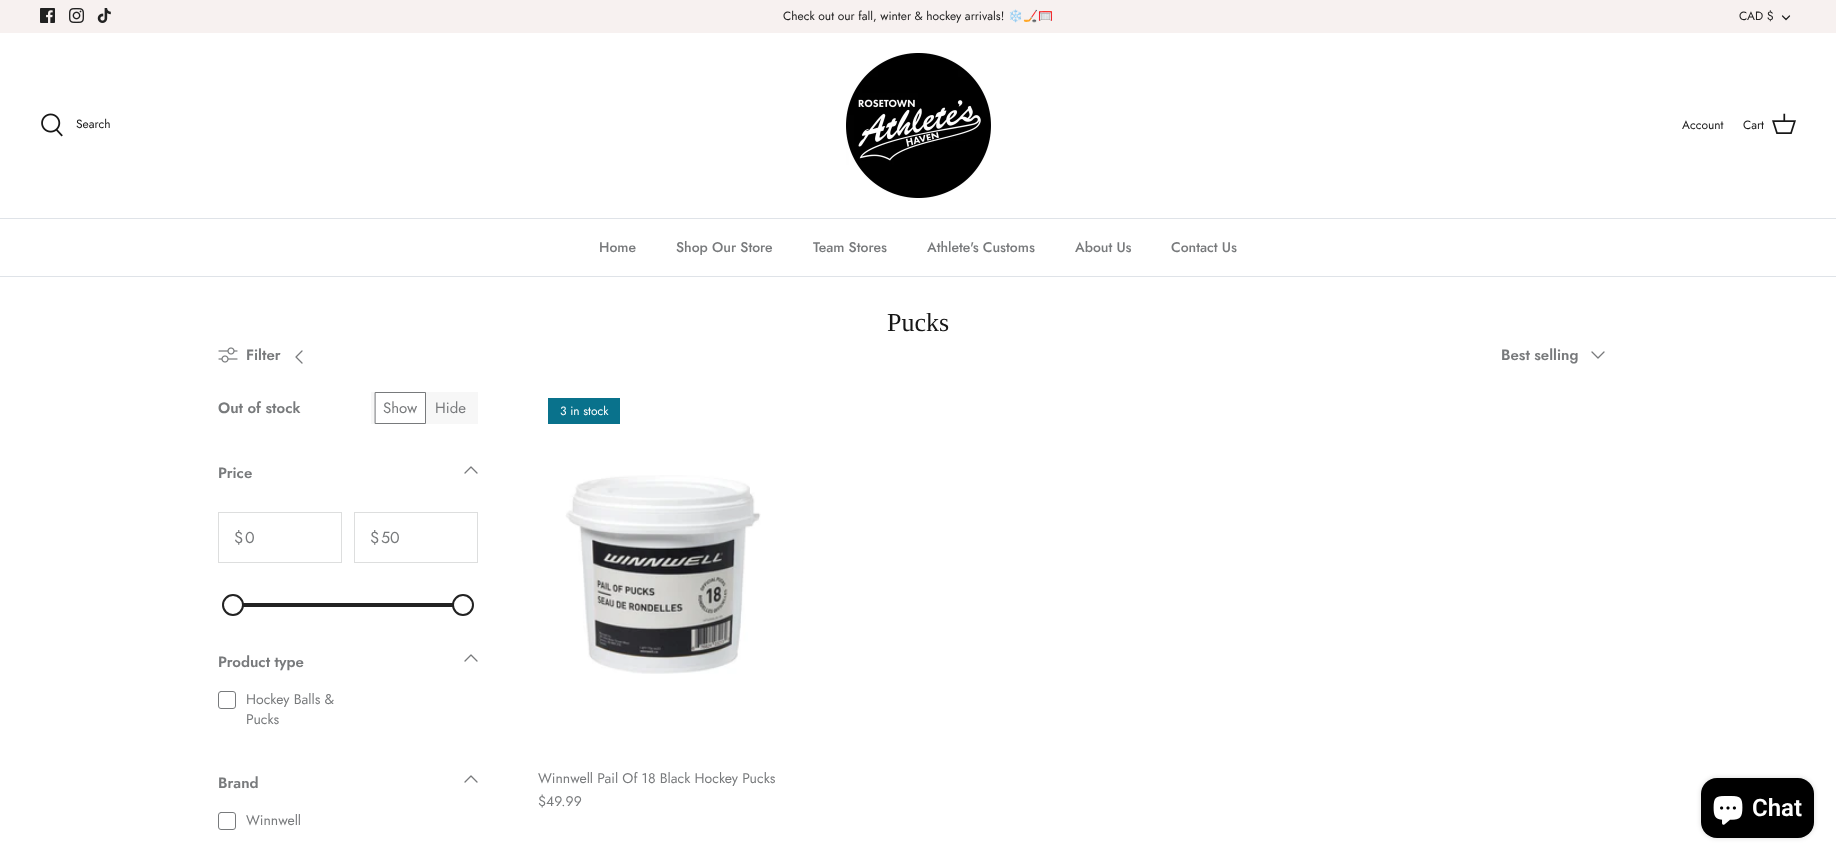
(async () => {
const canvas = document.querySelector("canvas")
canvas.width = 1836
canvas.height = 859
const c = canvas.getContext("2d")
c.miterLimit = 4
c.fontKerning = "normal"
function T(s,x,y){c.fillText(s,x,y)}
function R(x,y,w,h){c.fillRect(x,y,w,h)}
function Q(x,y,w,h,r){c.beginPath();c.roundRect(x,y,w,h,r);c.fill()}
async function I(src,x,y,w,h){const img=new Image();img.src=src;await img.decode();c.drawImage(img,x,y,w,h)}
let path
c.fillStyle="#fff"
R(0,0,1836,859)
c.fillStyle="#f7f1f0"
R(0,0,1836,33)
await I("1.png",40,8,15,15)
await I("2.png",69,8,15,15)
await I("3.png",97,8,14,15)
c.font="12px Jost"
c.fillStyle="#212121"
T("Check out our fall, winter & hockey arrivals!",783,20)
c.font="12px Noto Color Emoji"
T("❄️🏒🥅",1008,20)
c.font="12px Jost"
T("CAD $",1739,20)
path = new Path2D("M1782.5 16l3.5 3.5l3.5-3.5")
c.strokeStyle="#212121"
c.lineWidth=1.2
c.lineCap="round"
c.lineJoin="round"
c.stroke(path)
c.fillStyle="#dfe3e8"
R(0,218,1836,1)
await I("4.png",41,113,22,24)
c.fillStyle="#171717"
T("Search",76,128)
await I("5.png",846,53,145,145)
T("Account",1682,129)
T("Cart",1743,129)
await I("6.png",1772,113,24,21)
c.fillStyle="#dfe3e8"
R(0,276,1836,1)
c.font="500 14px Jost"
c.fillStyle="#787a7c"
T("Home",599,252)
T("Shop Our Store",676,252)
T("Team Stores",813,252)
T("Athlete's Customs",927,252)
T("About Us",1075,252)
T("Contact Us",1171,252)
c.font="26px Liberation Serif"
c.fillStyle="#171717"
T("Pucks",887,331)
await I("7.png",218,347,20,16)
c.font="600 15px Jost"
c.fillStyle="#787a7c"
T("Filter",246,360)
path = new Path2D("M302 351l-6 6l6 6")
c.strokeStyle="#787a7c"
c.lineWidth=1.3
c.stroke(path)
T("Best selling",1501,360)
path = new Path2D("M1592 352l6 6l6-6")
c.stroke(path)
T("Out of stock",218,413)
c.fillStyle="#f7f7f7"
R(371,392,107,32)
c.fillStyle="#fff"
c.beginPath()
c.rect(375.5,392.5,50,31)
c.fill()
c.lineWidth=1
c.lineJoin="miter"
c.stroke()
c.font="15px Jost"
c.fillStyle="#787a7c"
T("Show",383,413)
T("Hide",435,413)
c.font="600 15px Jost"
T("Price",218,478)
path = new Path2D("M477 473l-6-6l-6 6")
c.lineWidth=1.3
c.lineJoin="round"
c.stroke(path)
c.strokeStyle="#dddede"
c.lineWidth=1
c.lineJoin="miter"
c.strokeRect(218.5,512.5,123,50)
c.font="16px Jost"
T("$",234,543)
T("0",245,543)
c.strokeRect(354.5,512.5,123,50)
T("$",370,543)
T("50",381,543)
c.fillStyle="#222"
R(243,603,210,4)
c.fillStyle="#fff"
c.beginPath()
c.arc(233,605,10,0,7)
c.fill()
c.strokeStyle="#222"
c.lineWidth=2
c.stroke()
c.beginPath()
c.arc(463,605,10,0,7)
c.fill()
c.stroke()
c.font="600 15px Jost"
c.fillStyle="#787a7c"
T("Product type",218,667)
path = new Path2D("M477 661l-6-6l-6 6")
c.strokeStyle="#787a7c"
c.lineWidth=1.3
c.lineJoin="round"
c.stroke(path)
c.beginPath()
c.roundRect(218.5,691.5,17,17,2.5)
c.lineWidth=1
c.lineJoin="miter"
c.stroke()
c.font="14px Jost"
T("Hockey Balls &",246,704)
T("Pucks",246,724)
c.font="600 15px Jost"
T("Brand",218,788)
path = new Path2D("M477 782l-6-6l-6 6")
c.lineWidth=1.3
c.lineJoin="round"
c.stroke(path)
c.beginPath()
c.roundRect(218.5,812.5,17,17,2.5)
c.lineWidth=1
c.lineJoin="miter"
c.stroke()
c.font="14px Jost"
T("Winnwell",246,825)
c.fillStyle="#09728c"
R(548,398,72,26)
c.font="12px Jost"
c.fillStyle="#fff"
T("3 in stock",560,415)
await I("8.png",565,475,196,199)
c.font="14px Jost"
c.fillStyle="#787a7c"
T("Winnwell Pail Of 18 Black Hockey Pucks",538,783)
T("$49.99",538,806)
c.fillStyle="#00000026"
c.filter="blur(2.5px)"
c.beginPath()
c.roundRect(1701,778,113,60,16)
c.fill()
c.filter="none"
c.fillStyle="#000"
Q(1701,778,113,60,16)
await I("9.png",1713,796,30,29)
c.font="600 24px Roboto"
c.fillStyle="#fff"
T("Chat",1752,816)
})()
